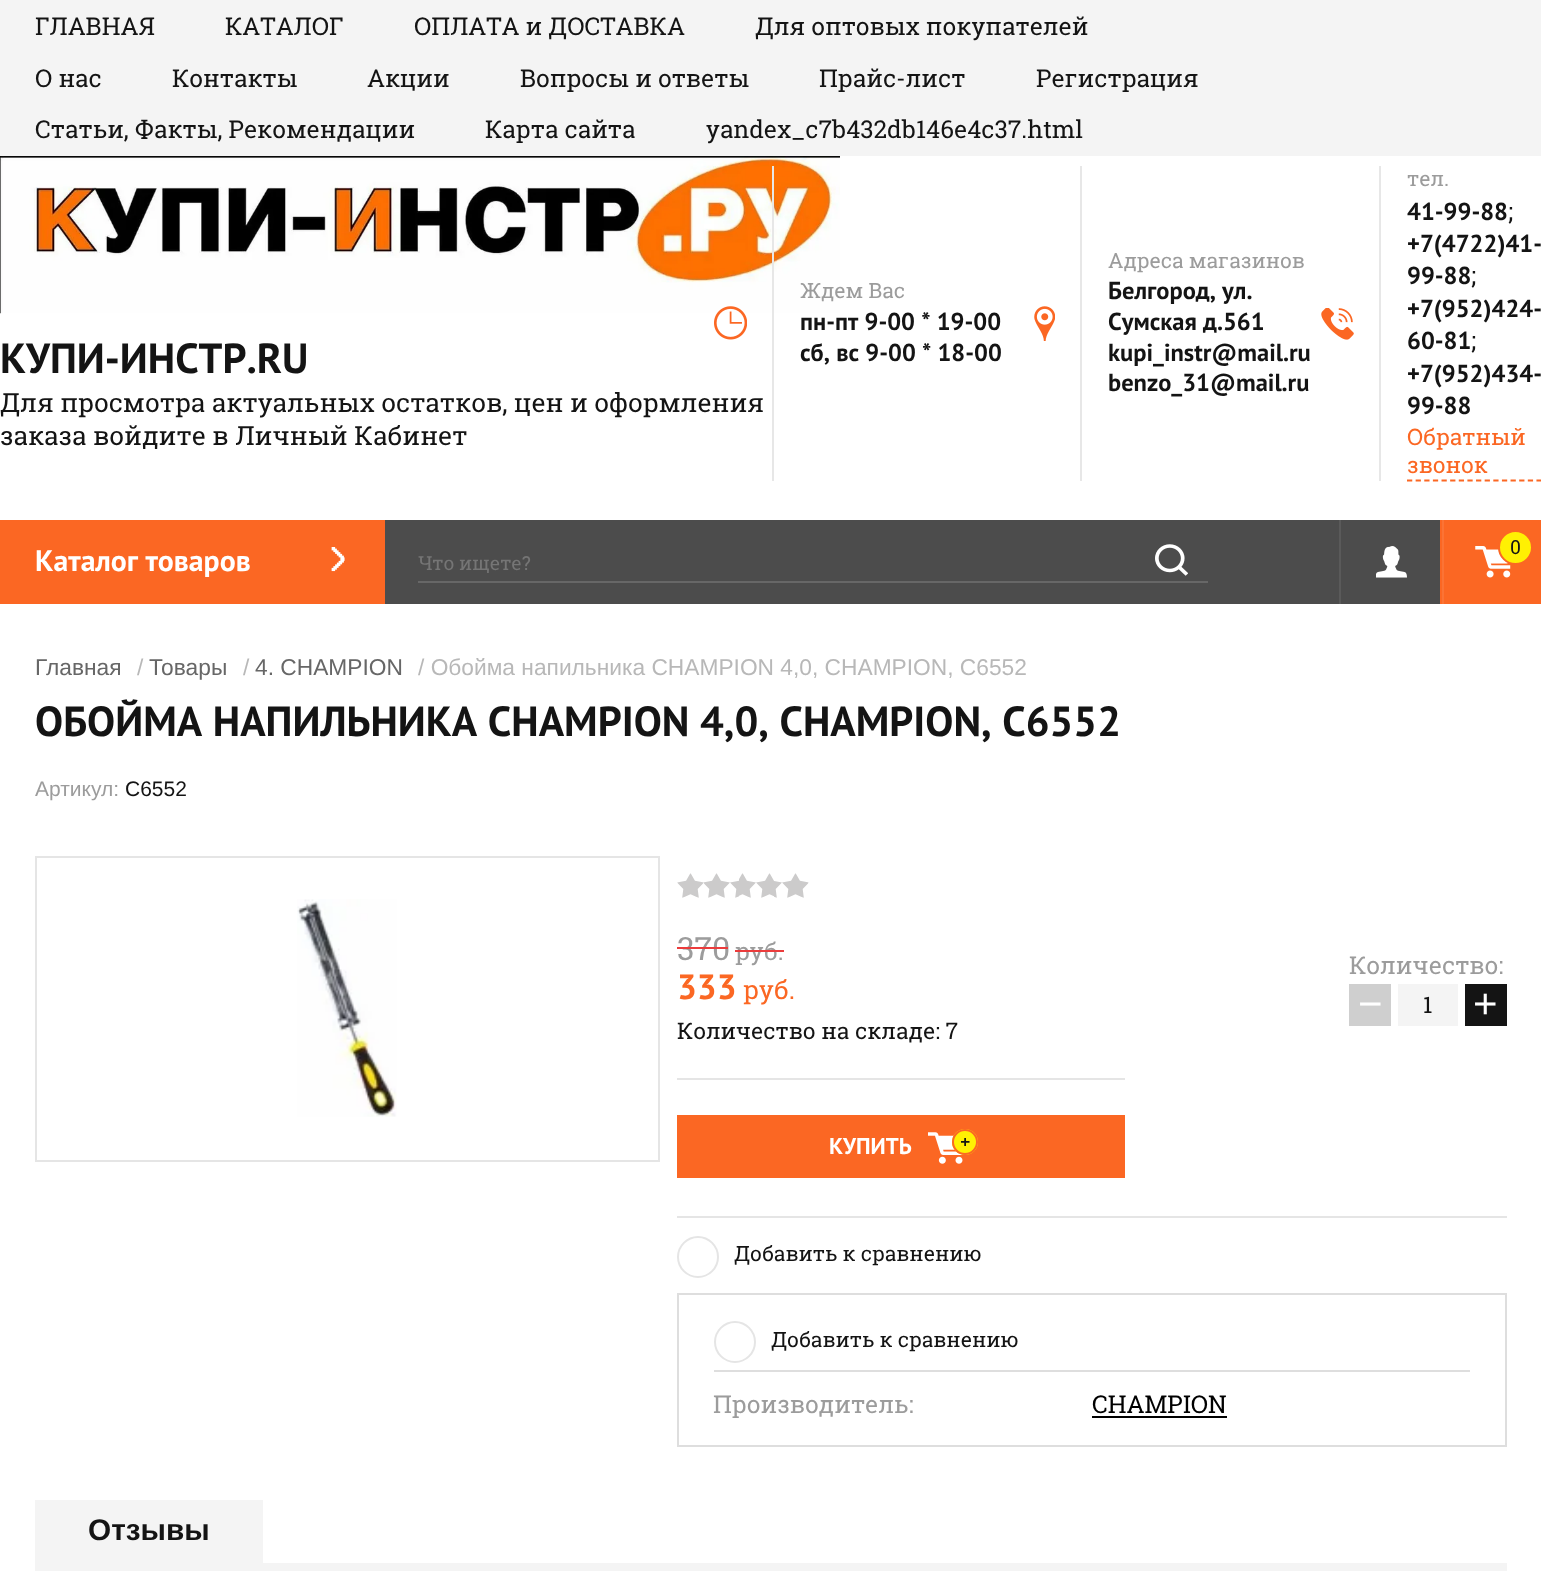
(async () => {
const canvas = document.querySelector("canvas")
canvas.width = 1541
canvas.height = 1571
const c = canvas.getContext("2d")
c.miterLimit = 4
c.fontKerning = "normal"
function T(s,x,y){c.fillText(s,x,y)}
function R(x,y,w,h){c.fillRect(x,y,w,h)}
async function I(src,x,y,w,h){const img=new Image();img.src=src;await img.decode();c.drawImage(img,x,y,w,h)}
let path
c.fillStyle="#fff"
R(0,0,1541,1571)
c.fillStyle="#f4f4f4"
R(0,0,1541,156)
c.font="24.5px Roboto Slab"
c.fillStyle="#141414"
T("ГЛАВНАЯ",35,35)
T("КАТАЛОГ",225,35)
T("ОПЛАТА и ДОСТАВКА",414,35)
T("Для оптовых покупателей",755,35)
T("О нас",35,87)
T("Контакты",172,87)
T("Акции",367,87)
T("Вопросы и ответы",520,87)
T("Прайс-лист",819,87)
T("Регистрация",1036,87)
T("Статьи, Факты, Рекомендации",35,138)
T("Карта сайта",485,138)
T("yandex_c7b432db146e4c37.html",706,138)
await I("1.png",0,156,840,158)
c.font="bold 42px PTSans"
T("КУПИ-ИНСТР.RU",0,373)
c.font="26.25px Roboto Slab"
T("Для просмотра актуальных остатков, цен и оформления",0,412)
T("заказа войдите в Личный Кабинет",0,445)
c.fillStyle="#e7e7e7"
R(772,166,2,315)
c.font="21px Roboto Slab"
c.fillStyle="#9c9c9c"
T("Ждем Вас",800,298)
await I("2.png",714,306,33,34)
c.font="bold 24.5px PTSans"
c.fillStyle="#141414"
T("пн-пт 9-00 * 19-00",800,330)
T("сб, вс 9-00 * 18-00",800,361)
c.fillStyle="#e7e7e7"
R(1080,166,2,315)
c.font="21px Roboto Slab"
c.fillStyle="#9c9c9c"
T("Адреса магазинов",1108,268)
await I("3.png",1034,306,21,35)
c.font="bold 24.5px PTSans"
c.fillStyle="#141414"
T("Белгород, ул.",1108,299)
T("Сумская д.561",1108,330)
T("kupi_instr@mail.ru",1108,361)
T("benzo_31@mail.ru",1108,391)
c.fillStyle="#e7e7e7"
R(1379,166,2,315)
c.font="21px Roboto Slab"
c.fillStyle="#9c9c9c"
T("тел.",1407,186)
await I("4.png",1321,308,33,32)
c.font="bold 24.5px PTSans"
c.fillStyle="#141414"
T("41-99-88",1407,220)
c.font="24.5px Roboto Slab"
T(";",1508,220)
c.font="bold 24.5px PTSans"
T("+7(4722)41-",1407,252)
T("99-88",1407,284)
c.font="24.5px Roboto Slab"
T(";",1471,284)
c.font="bold 24.5px PTSans"
T("+7(952)424-",1407,317)
T("60-81",1407,349)
c.font="24.5px Roboto Slab"
T(";",1471,349)
c.font="bold 24.5px PTSans"
T("+7(952)434-",1407,382)
T("99-88",1407,414)
path = new Path2D("M1407 480.5h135")
c.strokeStyle="#fb6723"
c.lineWidth=1.8
c.setLineDash([5.25,3.38])
c.stroke(path)
c.font="22.75px Roboto Slab"
c.fillStyle="#fb6723"
T("Обратный",1407,445)
T("звонок",1407,473)
c.fillStyle="#4c4c4c"
R(385,520,1055,84)
await I("5.png",1376,546,31,32)
c.fillStyle="#fb6723"
R(1440,520,101,84)
c.fillStyle="#fb7335"
R(1442,520,2,84)
c.fillStyle="#5a5a5a"
R(1339,520,2,84)
await I("6.png",1475,546,36,32)
c.fillStyle="#fff003"
c.beginPath()
c.arc(1515.5,547.5,16.5,0,7)
c.fill()
c.lineWidth=2
c.setLineDash([])
c.stroke()
c.font="19.25px Roboto Slab"
c.fillStyle="#141414"
T("0",1510,554)
c.fillStyle="#fb6723"
R(0,520,385,84)
c.font="bold 29.75px PTSans"
c.fillStyle="#fff"
T("Каталог товаров",35,571)
await I("7.png",331,547,14,25)
c.fillStyle="#676767"
R(418,581,790,2)
c.font="19.25px Roboto Slab"
c.fillStyle="#757575"
T("Что ищете?",418,570)
await I("8.png",1155,544,33,32)
c.font="22.75px Liberation Sans"
c.fillStyle="#676767"
T("Главная",35,675)
c.fillStyle="#b8b8b8"
T("/",137,675)
c.fillStyle="#676767"
T("Товары",149,675)
c.fillStyle="#b8b8b8"
T("/",243,675)
c.fillStyle="#676767"
T("4. CHAMPION",255,675)
c.fillStyle="#b8b8b8"
T("/ Обойма напильника CHAMPION 4,0, CHAMPION, C6552",418,675)
c.font="bold 42px PTSans"
c.fillStyle="#141414"
T("ОБОЙМА НАПИЛЬНИКА CHAMPION 4,0, CHAMPION, C6552",35,736)
c.font="21px Liberation Sans"
c.fillStyle="#9c9c9c"
T("Артикул:",35,796)
c.fillStyle="#141414"
T("C6552",125,796)
c.strokeStyle="#e5e5e5"
c.strokeRect(36,857,623,304)
await I("9.png",297,899,100,218)
await I("10.png",677,873,132,25)
c.font="32px Roboto Slab"
c.fillStyle="#9c9c9c"
T("370",677,960)
c.fillStyle="#eb3c3c"
R(677,947,51,2)
c.font="24.5px Roboto Slab"
c.fillStyle="#9c9c9c"
T("руб.",735,960)
c.fillStyle="#eb3c3c"
R(735,950,49,2)
c.font="bold 35px PTSans"
c.fillStyle="#fb6723"
T("333",677,999)
c.font="26.25px Roboto Slab"
T("руб.",743,999)
c.font="22.75px Roboto Slab"
c.fillStyle="#141414"
T("Количество на складе: 7",677,1039)
c.font="24.5px Roboto Slab"
c.fillStyle="#9c9c9c"
T("Количество:",1349,974)
c.fillStyle="#cfcfcf"
R(1349,984,42,42)
c.font="42px Liberation Sans"
c.fillStyle="#fff"
T("−",1358,1018)
c.fillStyle="#f4f4f4"
R(1398,984,60,42)
c.font="22.75px Roboto Slab"
c.fillStyle="#141414"
T("1",1423,1013)
R(1465,984,42,42)
c.font="42px Liberation Sans"
c.fillStyle="#fff"
T("+",1473,1018)
c.fillStyle="#e5e5e5"
R(677,1078,448,2)
c.fillStyle="#fb6723"
R(677,1115,448,63)
await I("11.png",928,1132,35,32)
c.font="bold 22.75px PTSans"
c.fillStyle="#fff"
T("КУПИТЬ",829,1154)
c.fillStyle="#fff003"
c.beginPath()
c.arc(965,1142,13,0,7)
c.fill()
await I("12.png",961,1138,9,8)
c.beginPath()
c.arc(965,1142,12,0,7)
c.strokeStyle="#fb6723"
c.stroke()
c.fillStyle="#e5e5e5"
R(677,1216,830,2)
c.beginPath()
c.arc(698,1257,20,0,7)
c.strokeStyle="#e5e5e5"
c.stroke()
c.font="21px Roboto Slab"
c.fillStyle="#141414"
T("Добавить к сравнению",734,1261)
c.strokeStyle="#dedede"
c.strokeRect(678,1294,828,152)
c.fillStyle="#dedede"
R(714,1370,756,2)
c.beginPath()
c.arc(735,1342,20,0,7)
c.strokeStyle="#e5e5e5"
c.stroke()
c.fillStyle="#141414"
T("Добавить к сравнению",771,1347)
c.font="24.5px Roboto Slab"
c.fillStyle="#9c9c9c"
T("Производитель:",713,1413)
c.fillStyle="#000"
T("CHAMPION",1092,1413)
R(1092,1416,135,2)
c.fillStyle="#f4f4f4"
R(35,1500,228,63)
c.font="bold 29.75px Liberation Sans"
c.fillStyle="#141414"
T("Отзывы",88,1540)
c.fillStyle="#f4f4f4"
R(35,1563,1472,8)
})()
